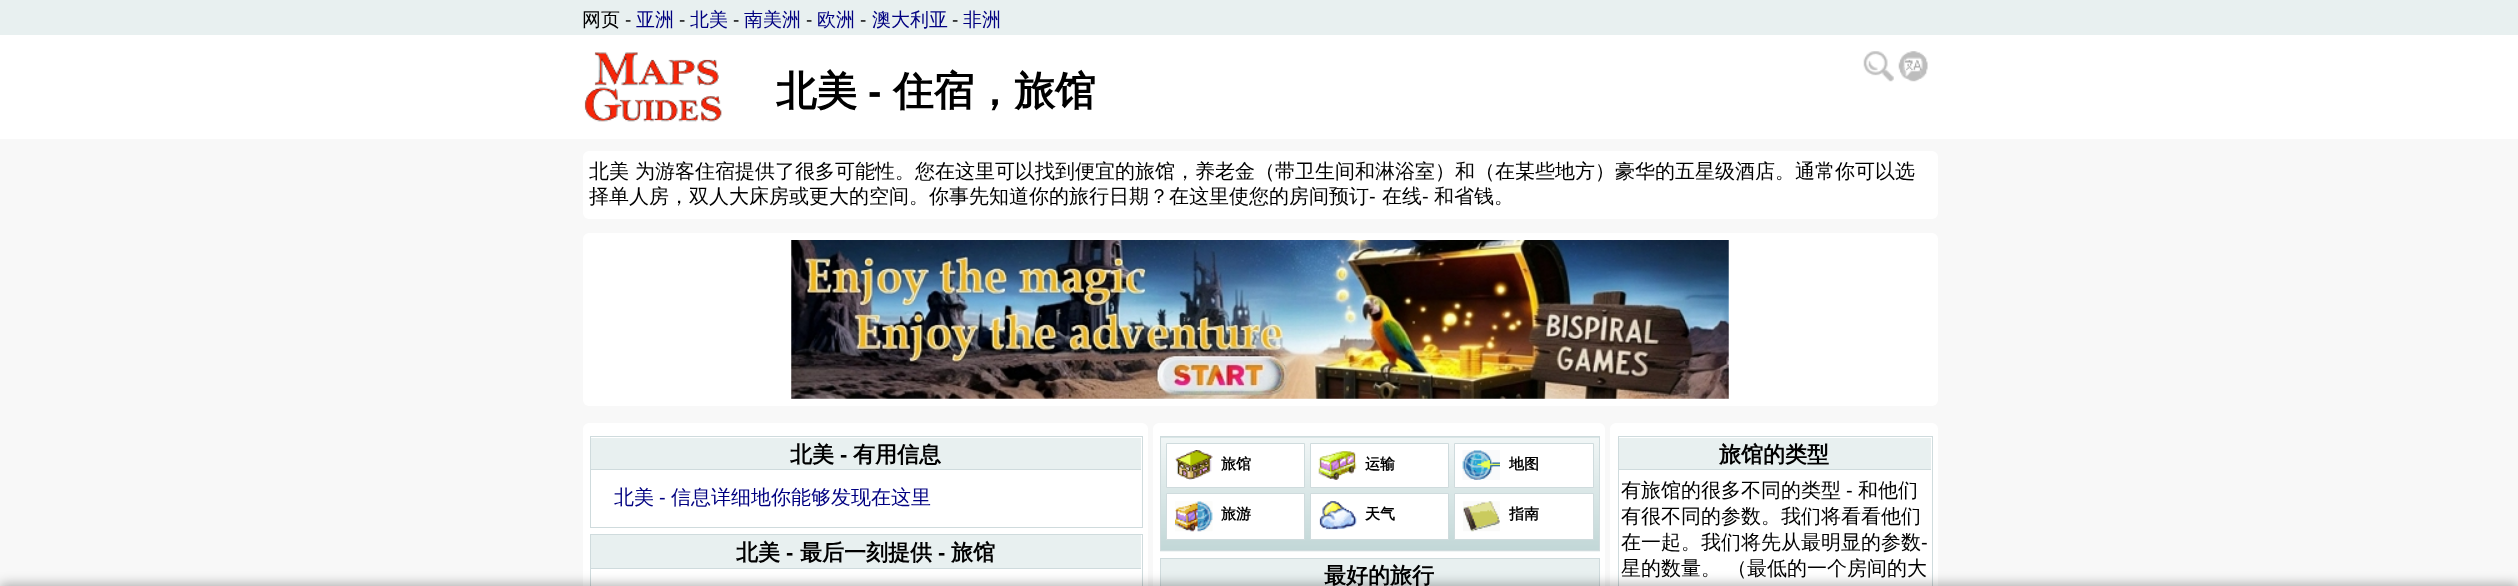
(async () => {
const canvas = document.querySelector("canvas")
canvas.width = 2518
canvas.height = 586
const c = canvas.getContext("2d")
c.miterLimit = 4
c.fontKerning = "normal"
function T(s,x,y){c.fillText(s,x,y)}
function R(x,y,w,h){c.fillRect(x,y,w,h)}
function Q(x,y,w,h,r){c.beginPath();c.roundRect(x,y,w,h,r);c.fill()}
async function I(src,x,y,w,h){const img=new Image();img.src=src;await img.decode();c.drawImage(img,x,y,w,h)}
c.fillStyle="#f8f8f8"
R(0,0,2518,586)
c.fillStyle="#e8f0f0"
R(0,0,2518,35)
c.font="500 19px WenQuanYi Zen Hei"
c.fillStyle="#000"
T("网页",582,26)
c.font="19px Liberation Sans"
T("-",625,26)
c.font="500 19px WenQuanYi Zen Hei"
c.fillStyle="#000080"
T("亚洲",636,26)
c.font="19px Liberation Sans"
c.fillStyle="#000"
T("-",679,26)
c.font="500 19px WenQuanYi Zen Hei"
c.fillStyle="#000080"
T("北美",690,26)
c.font="19px Liberation Sans"
c.fillStyle="#000"
T("-",733,26)
c.font="500 19px WenQuanYi Zen Hei"
c.fillStyle="#000080"
T("南美洲",744,26)
c.font="19px Liberation Sans"
c.fillStyle="#000"
T("-",806,26)
c.font="500 19px WenQuanYi Zen Hei"
c.fillStyle="#000080"
T("欧洲",817,26)
c.font="19px Liberation Sans"
c.fillStyle="#000"
T("-",860,26)
c.font="500 19px WenQuanYi Zen Hei"
c.fillStyle="#000080"
T("澳大利亚",872,26)
c.font="19px Liberation Sans"
c.fillStyle="#000"
T("-",952,26)
c.font="500 19px WenQuanYi Zen Hei"
c.fillStyle="#000080"
T("非洲",963,26)
c.fillStyle="#fff"
R(0,35,2518,104)
await I("1.png",584,52,138,70)
c.font="bold 40.5px WenQuanYi Zen Hei"
c.fillStyle="#000"
T("北美",776,105)
c.font="bold 40.5px Liberation Sans"
T("-",868,105)
c.font="bold 40.5px WenQuanYi Zen Hei"
T("住宿，旅馆",893,105)
await I("2.png",1863,51,65,31)
c.fillStyle="#fff"
Q(583,151,1355,68,6)
c.font="500 20px WenQuanYi Zen Hei"
c.fillStyle="#000"
T("北美 为游客住宿提供了很多可能性。您在这里可以找到便宜的旅馆，养老金（带卫生间和淋浴室）和（在某些地方）豪华的五星级酒店。通常你可以选",589,178)
T("择单人房，双人大床房或更大的空间。你事先知道你的旅行日期？在这里使您的房间预订",589,203)
c.font="20px Liberation Sans"
T("-",1369,203)
c.font="500 20px WenQuanYi Zen Hei"
T("在线",1382,203)
c.font="20px Liberation Sans"
T("-",1422,203)
c.font="500 20px WenQuanYi Zen Hei"
T("和省钱。",1434,203)
c.fillStyle="#fff"
Q(583,233,1355,173,6)
await I("3.png",791,240,938,159)
Q(583,423,565,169,6)
c.strokeStyle="#cfdbdd"
c.strokeRect(590.5,436.5,552,91)
c.fillStyle="#e8f0f0"
R(591,438,550,31)
c.fillStyle="#cfdbdd"
R(591,469,550,1)
c.font="bold 22px WenQuanYi Zen Hei"
c.fillStyle="#000"
T("北美",790,462)
c.font="bold 22px Liberation Sans"
T("-",840,462)
c.font="bold 22px WenQuanYi Zen Hei"
T("有用信息",853,462)
c.font="500 20px WenQuanYi Zen Hei"
c.fillStyle="#000080"
T("北美",614,504)
c.font="20px Liberation Sans"
T("-",659,504)
c.font="500 20px WenQuanYi Zen Hei"
T("信息详细地你能够发现在这里",671,504)
c.strokeRect(590.5,534.5,552,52)
c.fillStyle="#e8f0f0"
R(591,535,550,33)
c.fillStyle="#cfdbdd"
R(591,568,550,1)
c.font="bold 22px WenQuanYi Zen Hei"
c.fillStyle="#000"
T("北美",736,560)
c.font="bold 22px Liberation Sans"
T("-",786,560)
c.font="bold 22px WenQuanYi Zen Hei"
T("最后一刻提供",800,560)
c.font="bold 22px Liberation Sans"
T("-",938,560)
c.font="bold 22px WenQuanYi Zen Hei"
T("旅馆",951,560)
c.fillStyle="#fff"
Q(1153,423,452,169,6)
await I("4.png",1160,437,440,115)
c.strokeRect(1160.5,436.5,439,114)
c.beginPath()
c.rect(1166.5,443.5,138,44)
c.fill()
c.stroke()
await I("5.png",1175,450,38,30)
c.font="bold 15px WenQuanYi Zen Hei"
c.fillStyle="#000"
T("旅馆",1221,469)
c.fillStyle="#fff"
c.beginPath()
c.rect(1310.5,443.5,138,44)
c.fill()
c.stroke()
await I("6.png",1318,451,39,29)
c.fillStyle="#000"
T("运输",1365,469)
c.fillStyle="#fff"
c.beginPath()
c.rect(1454.5,443.5,139,44)
c.fill()
c.stroke()
await I("7.png",1462,450,38,30)
c.fillStyle="#000"
T("地图",1509,469)
c.fillStyle="#fff"
c.beginPath()
c.rect(1166.5,493.5,138,46)
c.fill()
c.stroke()
await I("8.png",1175,501,38,31)
c.fillStyle="#000"
T("旅游",1221,519)
c.fillStyle="#fff"
c.beginPath()
c.rect(1310.5,493.5,138,46)
c.fill()
c.stroke()
await I("9.png",1319,500,38,30)
c.fillStyle="#000"
T("天气",1365,519)
c.fillStyle="#fff"
c.beginPath()
c.rect(1454.5,493.5,139,46)
c.fill()
c.stroke()
await I("10.png",1463,501,37,31)
c.fillStyle="#000"
T("指南",1509,519)
c.strokeRect(1160.5,558.5,439,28)
c.fillStyle="#e8f0f0"
R(1161,559,438,27)
c.font="bold 22px WenQuanYi Zen Hei"
c.fillStyle="#000"
T("最好的旅行",1324,583)
c.fillStyle="#fff"
Q(1610,423,328,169,6)
c.strokeRect(1618.5,436.5,314,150)
c.fillStyle="#e8f0f0"
R(1619,438,312,31)
c.fillStyle="#cfdbdd"
R(1619,469,312,1)
c.fillStyle="#000"
T("旅馆的类型",1719,462)
c.font="500 20px WenQuanYi Zen Hei"
T("有旅馆的很多不同的类型",1621,497)
c.font="20px Liberation Sans"
T("-",1846,497)
c.font="500 20px WenQuanYi Zen Hei"
T("和他们",1858,497)
T("有很不同的参数。我们将看看他们",1621,523)
T("在一起。我们将先从最明显的参数",1621,549)
c.font="20px Liberation Sans"
T("-",1921,549)
c.font="500 20px WenQuanYi Zen Hei"
T("星的数量。 （最低的一个房间的大",1621,575)
c.fillStyle="#0000004d"
c.filter="blur(6px)"
c.beginPath()
c.rect(0,584,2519,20)
c.fill()
c.filter="none"
})()
